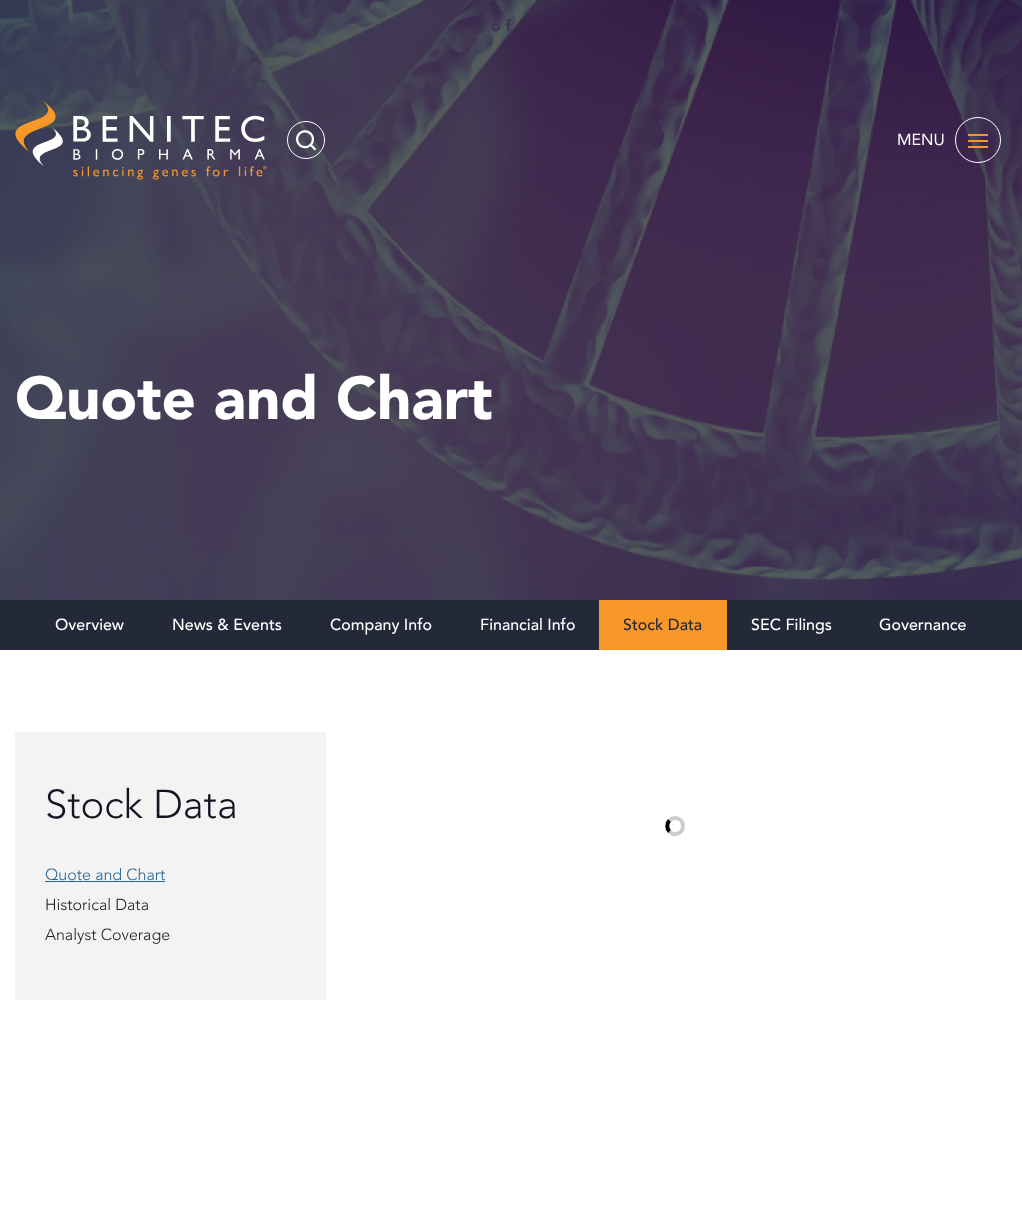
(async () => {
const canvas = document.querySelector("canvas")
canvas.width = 1022
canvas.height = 1219
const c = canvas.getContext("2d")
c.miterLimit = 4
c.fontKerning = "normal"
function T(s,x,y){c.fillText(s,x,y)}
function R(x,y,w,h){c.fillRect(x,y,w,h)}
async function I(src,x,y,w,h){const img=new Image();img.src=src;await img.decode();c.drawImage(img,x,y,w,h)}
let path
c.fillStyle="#fff"
R(0,0,1022,1219)
await I("3.png",0,0,1022,600)
c.font="900 16px Avenir"
c.fillStyle="#403551"
T("o f",491,31)
await I("1.png",15,100,252,80)
c.beginPath()
c.arc(306,140,18.5,0,7)
c.strokeStyle="#fff"
c.stroke()
await I("2.png",296,130,20,21)
c.font="16px Avenir"
c.fillStyle="#fff"
T("MENU",897,145)
c.beginPath()
c.arc(978,140,22.5,0,7)
c.stroke()
c.fillStyle="#f89829"
R(968,134,20,2)
R(968,140,20,2)
R(968,146,20,2)
c.font="900 60px Avenir"
c.fillStyle="#fff"
T("Quote and Chart",15,419)
c.fillStyle="#242939"
R(0,600,1022,50)
c.font="500 16px Avenir"
c.fillStyle="#fff"
T("Overview",55,630)
T("News & Events",172,630)
T("Company Info",330,630)
T("Financial Info",480,630)
c.fillStyle="#f89829"
R(599,600,128,50)
c.fillStyle="#242939"
T("Stock Data",623,630)
c.fillStyle="#fff"
T("SEC Filings",751,630)
T("Governance",879,630)
c.fillStyle="#f3f3f3"
R(15,732,311,268)
c.font="300 40px Avenir"
c.fillStyle="#111521"
T("Stock Data",45,818)
c.font="300 16px Avenir"
c.fillStyle="#2b6493"
T("Quote and Chart",45,880)
R(45,881,120,1)
c.fillStyle="#202020"
T("Historical Data",45,910)
T("Analyst Coverage",45,940)
path = new Path2D("M669.5 820.5c1.5-1.5 3.5-2.5 5.5-2.5c9.5 0 11 14 1.5 16c-2.5 .5-5.5-.5-7-2.5")
c.strokeStyle="#ccc"
c.lineWidth=4
c.stroke(path)
path = new Path2D("M669.5 831.5c-3-3-3-8 0-11")
c.strokeStyle="#000"
c.stroke(path)
})()
